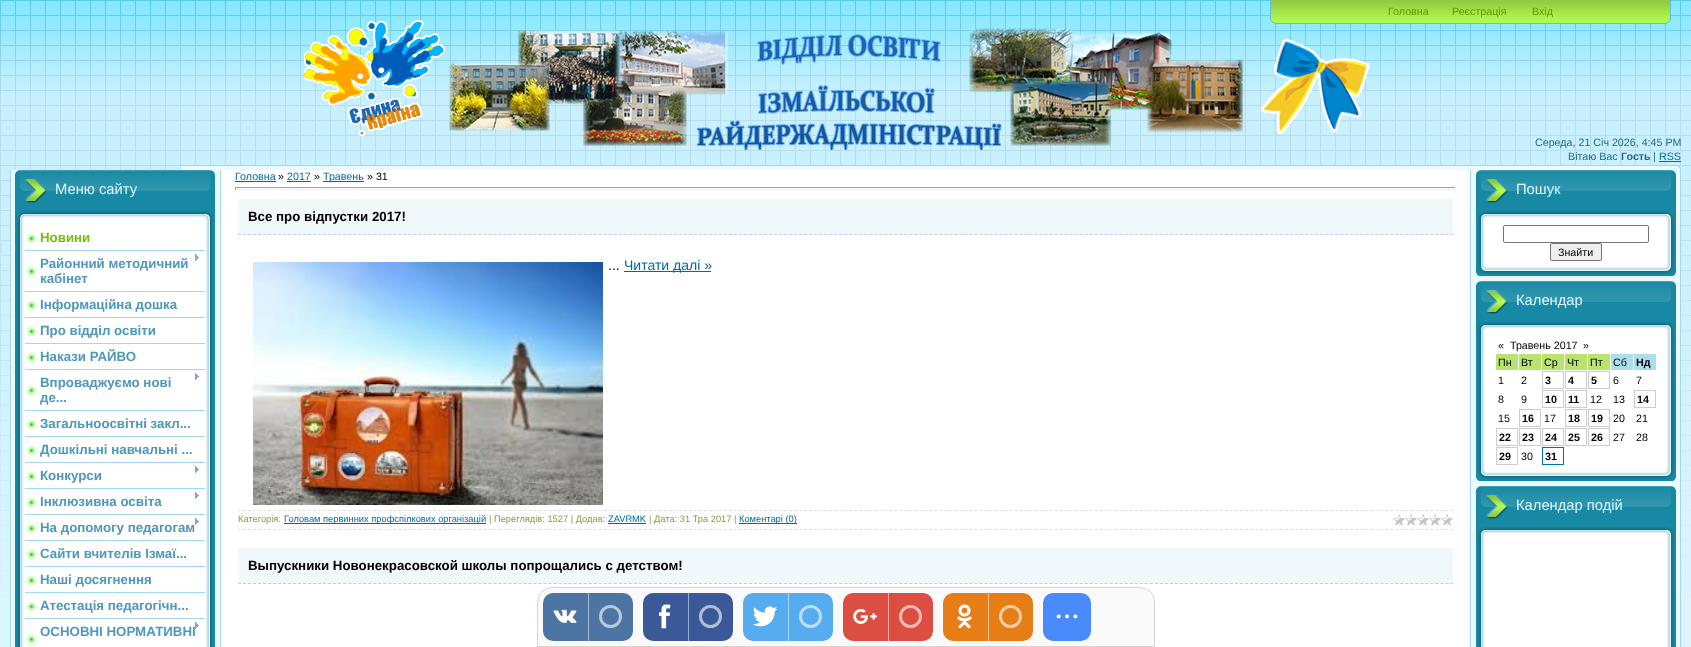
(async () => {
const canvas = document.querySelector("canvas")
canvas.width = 1691
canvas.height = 647
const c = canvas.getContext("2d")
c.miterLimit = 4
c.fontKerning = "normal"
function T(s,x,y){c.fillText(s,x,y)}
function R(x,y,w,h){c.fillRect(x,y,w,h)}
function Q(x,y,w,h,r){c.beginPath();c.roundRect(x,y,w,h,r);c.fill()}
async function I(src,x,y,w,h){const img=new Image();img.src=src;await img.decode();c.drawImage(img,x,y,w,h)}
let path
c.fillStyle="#dcf6ff"
R(0,0,1691,647)
await I("1.png",0,0,1691,598)
await I("2.png",181,165,1500,5)
await I("4.png",304,19,1066,131)
await I("3.png",1270,0,401,24)
c.font="10.7px Liberation Sans"
c.fillStyle="#599b00"
T("Головна",1388,15)
T("Реєстрація",1452,15)
T("Вхід",1532,15)
c.fillStyle="#1f6c7f"
T("Середа, 21 Січ 2026, 4:45 PM",1535,146)
T("Вітаю Вас",1568,160)
c.font="bold 10.7px Liberation Sans"
T("Гость",1621,160)
c.font="10.7px Liberation Sans"
T("|",1653,160)
c.fillStyle="#0069a9"
T("RSS",1659,160)
R(1659,161,22,1)
await I("5.png",10,170,215,477)
await I("6.png",15,210,200,437)
c.fillStyle="#1789a4"
R(15,203,200,7)
await I("7.png",15,170,200,33)
c.font="14.75px Liberation Sans"
c.fillStyle="#dcf6ff"
T("Меню сайту",55,194)
await I("8.png",17,210,196,13)
await I("9.png",25,232,12,12)
c.fillStyle="#a2d7ec"
R(25,250,180,1)
c.font="bold 13.3px Liberation Sans"
c.fillStyle="#79bd11"
T("Новини",40,242)
await I("9.png",25,265,12,12)
c.fillStyle="#a2d7ec"
R(25,291,180,1)
c.fillStyle="#4f98bc"
T("Районний методичний",40,268)
await I("10.png",195,254,4,7)
T("кабінет",40,283)
await I("9.png",25,299,12,12)
c.fillStyle="#a2d7ec"
R(25,317,180,1)
c.fillStyle="#4f98bc"
T("Інформаційна дошка",40,309)
await I("9.png",25,325,12,12)
c.fillStyle="#a2d7ec"
R(25,343,180,1)
c.fillStyle="#4f98bc"
T("Про відділ освіти",40,335)
await I("9.png",25,351,12,12)
c.fillStyle="#a2d7ec"
R(25,369,180,1)
c.fillStyle="#4f98bc"
T("Накази РАЙВО",40,361)
await I("9.png",25,384,12,12)
c.fillStyle="#a2d7ec"
R(25,410,180,1)
c.fillStyle="#4f98bc"
T("Впроваджуємо нові",40,387)
await I("10.png",195,373,4,7)
T("де...",40,402)
await I("9.png",25,418,12,12)
c.fillStyle="#a2d7ec"
R(25,436,180,1)
c.fillStyle="#4f98bc"
T("Загальноосвітні закл...",40,428)
await I("9.png",25,444,12,12)
c.fillStyle="#a2d7ec"
R(25,462,180,1)
c.fillStyle="#4f98bc"
T("Дошкільні навчальні ...",40,454)
await I("9.png",25,470,12,12)
c.fillStyle="#a2d7ec"
R(25,488,180,1)
c.fillStyle="#4f98bc"
T("Конкурси",40,480)
await I("10.png",195,466,4,7)
await I("9.png",25,496,12,12)
c.fillStyle="#a2d7ec"
R(25,514,180,1)
c.fillStyle="#4f98bc"
T("Інклюзивна освіта",40,506)
await I("10.png",195,492,4,7)
await I("9.png",25,522,12,12)
c.fillStyle="#a2d7ec"
R(25,540,180,1)
c.fillStyle="#4f98bc"
T("На допомогу педагогам",40,532)
await I("10.png",195,518,4,7)
await I("9.png",25,548,12,12)
c.fillStyle="#a2d7ec"
R(25,566,180,1)
c.fillStyle="#4f98bc"
T("Сайти вчителів Ізмаї...",40,558)
await I("9.png",25,574,12,12)
c.fillStyle="#a2d7ec"
R(25,592,180,1)
c.fillStyle="#4f98bc"
T("Наші досягнення",40,584)
await I("9.png",25,600,12,12)
c.fillStyle="#a2d7ec"
R(25,618,180,1)
c.fillStyle="#4f98bc"
T("Атестація педагогічн...",40,610)
await I("9.png",25,633,12,12)
T("ОСНОВНІ НОРМАТИВНІ",40,636)
await I("10.png",195,622,4,7)
c.fillStyle="#fff"
R(225,170,1241,477)
c.font="10.7px Liberation Sans"
c.fillStyle="#0069a9"
T("Головна",235,180)
R(235,181,41,1)
c.fillStyle="#000"
T("»",278,180)
c.fillStyle="#0069a9"
T("2017",287,180)
R(287,181,24,1)
c.fillStyle="#000"
T("»",314,180)
c.fillStyle="#0069a9"
R(323,181,41,1)
T("Травень",323,180)
c.fillStyle="#000"
T("» 31",367,180)
c.fillStyle="#9f9f9f"
R(235,187,1221,1)
c.fillStyle="#eee"
R(1455,187,1,3)
R(235,189,1221,1)
c.fillStyle="#9f9f9f"
R(235,187,1,3)
c.fillStyle="#f1f8fb"
R(238,199,1215,36)
path = new Path2D("M238 234.5h1215")
c.strokeStyle="#cbcbe6"
c.setLineDash([3,2.01])
c.stroke(path)
c.font="bold 13.3px Liberation Sans"
c.fillStyle="#000"
T("Все про відпустки 2017!",248,221)
await I("11.png",253,262,350,243)
c.font="14px Liberation Sans"
T("...",608,270)
c.fillStyle="#0069a9"
R(624,271,87,1)
T("Читати далі »",624,270)
path = new Path2D("M238 510.5h1215")
c.strokeStyle="#ddd"
c.stroke(path)
path = new Path2D("M238 529.5h1215")
c.stroke(path)
c.font="9.3px Liberation Sans"
c.fillStyle="#79a53d"
T("Категорія:",238,522)
c.fillStyle="#0069a9"
R(284,523,202,1)
T("Головам первинних профспілкових організацій",284,522)
c.fillStyle="#79a53d"
T("| Переглядів: 1527 | Додав:",489,522)
c.fillStyle="#0069a9"
T("ZAVRMK",608,522)
R(608,523,38,1)
c.fillStyle="#79a53d"
T("| Дата: 31 Тра 2017 |",649,522)
c.fillStyle="#0069a9"
R(739,523,58,1)
T("Коментарі (0)",739,522)
await I("12.png",1393,514,60,12)
c.fillStyle="#f1f8fb"
R(238,548,1215,36)
path = new Path2D("M238 583.5h1215")
c.strokeStyle="#cbcbe6"
c.stroke(path)
c.font="bold 13.3px Liberation Sans"
c.fillStyle="#000"
T("Выпускники Новонекрасовской школы попрощались с детством!",248,570)
await I("13.png",1466,170,215,477)
await I("14.png",1476,210,200,66)
c.fillStyle="#1789a4"
R(1476,203,200,7)
await I("7.png",1476,170,200,33)
c.font="14.75px Liberation Sans"
c.fillStyle="#dcf6ff"
T("Пошук",1516,194)
await I("8.png",1478,210,196,13)
c.beginPath()
c.roundRect(1503.5,225.5,145,17,1.5)
c.strokeStyle="#767676"
c.setLineDash([])
c.stroke()
c.fillStyle="#efefef"
c.beginPath()
c.roundRect(1550.5,243.5,51,17,1.5)
c.fill()
c.stroke()
c.font="10.7px Liberation Sans"
c.fillStyle="#000"
T("Знайти",1558,256)
await I("15.png",1476,321,200,160)
c.fillStyle="#1789a4"
R(1476,314,200,7)
await I("7.png",1476,281,200,33)
c.font="14.75px Liberation Sans"
c.fillStyle="#dcf6ff"
T("Календар",1516,305)
await I("8.png",1478,321,196,13)
c.font="10.7px Liberation Sans"
c.fillStyle="#000"
T("«",1498,349)
T("Травень 2017",1510,349)
T("»",1583,349)
c.fillStyle="#b7e36e"
R(1496,354,22,16)
c.fillStyle="#000"
T("Пн",1498,366)
c.fillStyle="#b7e36e"
R(1519,354,22,16)
c.fillStyle="#000"
T("Вт",1521,366)
c.fillStyle="#b7e36e"
R(1542,354,22,16)
c.fillStyle="#000"
T("Ср",1544,366)
c.fillStyle="#b7e36e"
R(1565,354,22,16)
c.fillStyle="#000"
T("Чт",1567,366)
c.fillStyle="#b7e36e"
R(1588,354,22,16)
c.fillStyle="#000"
T("Пт",1590,366)
c.fillStyle="#acdeee"
R(1611,354,22,16)
c.fillStyle="#000"
T("Сб",1613,366)
c.fillStyle="#acdeee"
R(1634,354,22,16)
c.font="bold 10.7px Liberation Sans"
c.fillStyle="#000"
T("Нд",1636,366)
c.font="10.7px Liberation Sans"
T("1",1498,384)
T("2",1521,384)
c.strokeStyle="#ccc"
c.strokeRect(1542.5,371.5,21,17)
c.font="bold 10.7px Liberation Sans"
T("3",1545,384)
c.strokeRect(1565.5,371.5,21,17)
T("4",1568,384)
c.strokeRect(1588.5,371.5,21,17)
T("5",1591,384)
c.font="10.7px Liberation Sans"
T("6",1613,384)
T("7",1636,384)
T("8",1498,403)
T("9",1521,403)
c.strokeRect(1542.5,390.5,21,17)
c.font="bold 10.7px Liberation Sans"
T("10",1545,403)
c.strokeRect(1565.5,390.5,21,17)
T("11",1568,403)
c.font="10.7px Liberation Sans"
T("12",1590,403)
T("13",1613,403)
c.strokeRect(1634.5,390.5,21,17)
c.font="bold 10.7px Liberation Sans"
T("14",1637,403)
c.font="10.7px Liberation Sans"
T("15",1498,422)
c.strokeRect(1519.5,409.5,21,17)
c.font="bold 10.7px Liberation Sans"
T("16",1522,422)
c.font="10.7px Liberation Sans"
T("17",1544,422)
c.strokeRect(1565.5,409.5,21,17)
c.font="bold 10.7px Liberation Sans"
T("18",1568,422)
c.strokeRect(1588.5,409.5,21,17)
T("19",1591,422)
c.font="10.7px Liberation Sans"
T("20",1613,422)
T("21",1636,422)
c.strokeRect(1496.5,428.5,21,17)
c.font="bold 10.7px Liberation Sans"
T("22",1499,441)
c.strokeRect(1519.5,428.5,21,17)
T("23",1522,441)
c.strokeRect(1542.5,428.5,21,17)
T("24",1545,441)
c.strokeRect(1565.5,428.5,21,17)
T("25",1568,441)
c.strokeRect(1588.5,428.5,21,17)
T("26",1591,441)
c.font="10.7px Liberation Sans"
T("27",1613,441)
T("28",1636,441)
c.strokeRect(1496.5,447.5,21,17)
c.font="bold 10.7px Liberation Sans"
T("29",1499,460)
c.font="10.7px Liberation Sans"
T("30",1521,460)
c.strokeStyle="#016ead"
c.strokeRect(1542.5,447.5,21,17)
c.font="bold 10.7px Liberation Sans"
T("31",1545,460)
await I("16.png",1476,526,200,121)
c.fillStyle="#1789a4"
R(1476,519,200,7)
await I("7.png",1476,486,200,33)
c.font="14.75px Liberation Sans"
c.fillStyle="#dcf6ff"
T("Календар подій",1516,510)
await I("8.png",1478,526,196,13)
c.fillStyle="#fafafa"
c.beginPath()
c.roundRect(537.5,587.5,617,59,[14.5,14.5,0,0])
c.fill()
c.strokeStyle="#d4d4d4"
c.stroke()
c.fillStyle="#4d75a3"
Q(543,593,90,48,10)
await I("17.png",553,609,24,14)
c.fillStyle="#a6bad1"
R(588,593,1,48)
c.beginPath()
c.arc(610.5,616.5,10,0,7)
c.strokeStyle="#b8c8da"
c.lineWidth=3
c.stroke()
c.fillStyle="#3b5998"
Q(643,593,90,48,10)
await I("18.png",659,604,12,25)
c.fillStyle="#9daccc"
R(688,593,1,48)
c.beginPath()
c.arc(710.5,616.5,10,0,7)
c.strokeStyle="#b1bdd6"
c.stroke()
c.fillStyle="#55acee"
Q(743,593,90,48,10)
await I("19.png",753,606,25,21)
c.fillStyle="#aad6f7"
R(788,593,1,48)
c.beginPath()
c.arc(810.5,616.5,10,0,7)
c.strokeStyle="#bbdef8"
c.stroke()
c.fillStyle="#dc4e41"
Q(843,593,90,48,10)
await I("20.png",853,608,24,16)
c.fillStyle="#eea7a0"
R(888,593,1,48)
c.beginPath()
c.arc(910.5,616.5,10,0,7)
c.strokeStyle="#f1b8b3"
c.stroke()
c.fillStyle="#e67e17"
Q(943,593,90,48,10)
await I("21.png",957,604,15,25)
c.fillStyle="#f3bf8b"
R(988,593,1,48)
c.beginPath()
c.arc(1010.5,616.5,10,0,7)
c.strokeStyle="#f5cba2"
c.stroke()
c.fillStyle="#498bfa"
Q(1043,593,48,48,10)
await I("22.png",1056,614,22,5)
})()
